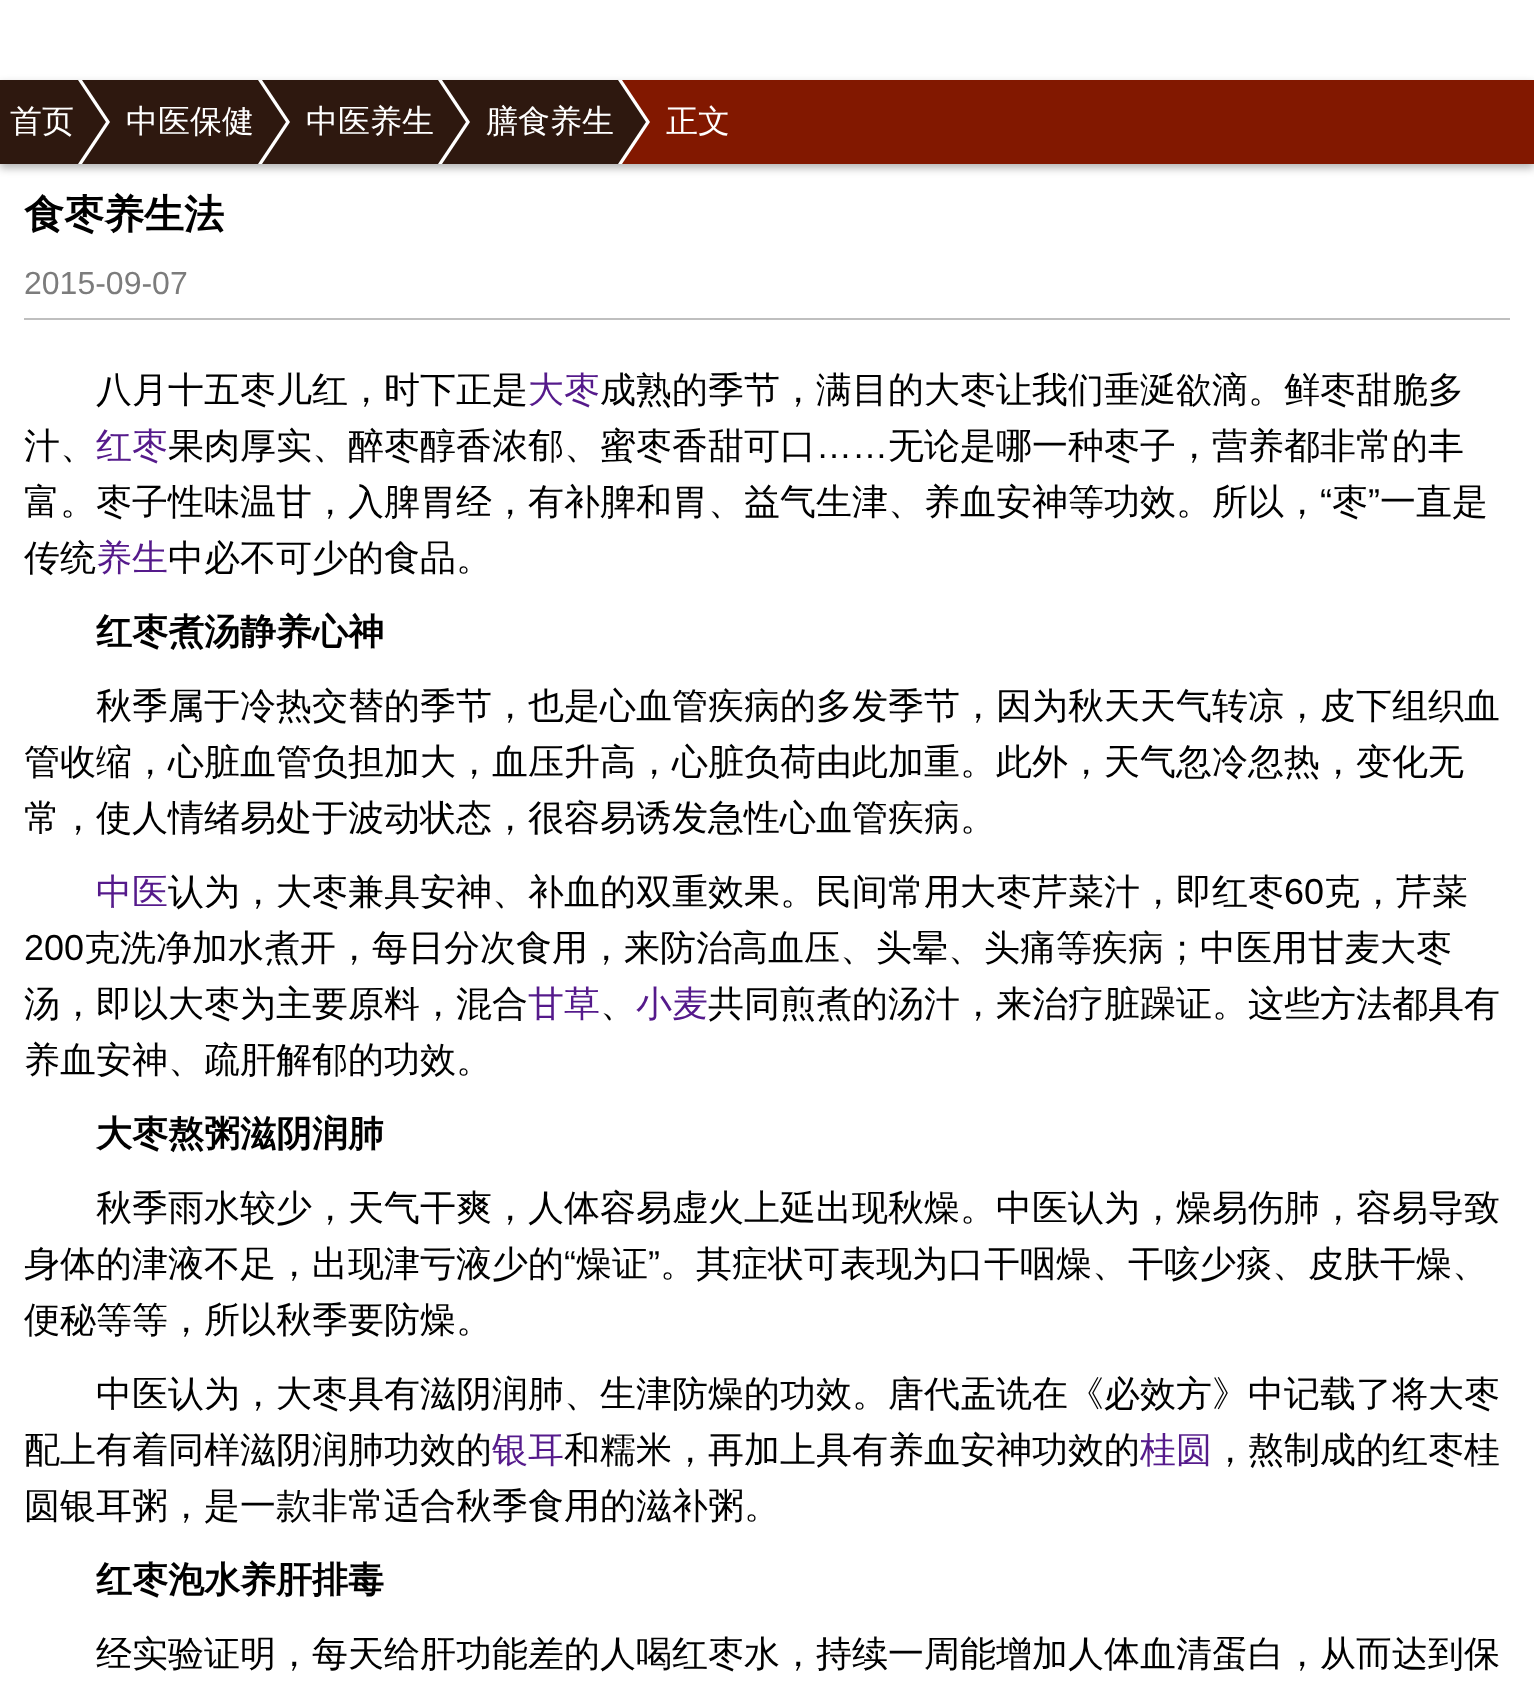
(async () => {
const canvas = document.querySelector("canvas")
canvas.width = 1534
canvas.height = 1705
const c = canvas.getContext("2d")
c.miterLimit = 4
c.fontKerning = "normal"
function T(s,x,y){c.fillText(s,x,y)}
function R(x,y,w,h){c.fillRect(x,y,w,h)}
let path
c.fillStyle="#fff"
R(0,0,1534,1705)
c.fillStyle="#0000004d"
c.filter="blur(4px)"
c.beginPath()
c.rect(0,84,1534,84)
c.fill()
c.filter="none"
c.fillStyle="#821800"
R(622,80,912,84)
c.fillStyle="#2e180f"
R(0,80,74,84)
R(82,80,172,84)
c.save()
c.beginPath()
c.rect(0,80,1534,84)
c.clip()
c.fillStyle="#fff"
path = new Path2D("M78 170v-96l32 48z")
c.fill(path)
c.fillStyle="#2e180f"
path = new Path2D("M74 170v-96l32 48z")
c.fill(path)
c.restore()
c.font="500 32px WenQuanYi Zen Hei"
c.fillStyle="#fff"
T("首页",10,132)
c.fillStyle="#2e180f"
R(262,80,172,84)
c.save()
c.beginPath()
c.rect(0,80,1534,84)
c.clip()
c.fillStyle="#fff"
path = new Path2D("M258 170v-96l32 48z")
c.fill(path)
c.fillStyle="#2e180f"
path = new Path2D("M254 170v-96l32 48z")
c.fill(path)
c.restore()
c.fillStyle="#fff"
T("中医保健",126,132)
c.fillStyle="#2e180f"
R(442,80,172,84)
c.save()
c.beginPath()
c.rect(0,80,1534,84)
c.clip()
c.fillStyle="#fff"
path = new Path2D("M438 170v-96l32 48z")
c.fill(path)
c.fillStyle="#2e180f"
path = new Path2D("M434 170v-96l32 48z")
c.fill(path)
c.restore()
c.fillStyle="#fff"
T("中医养生",306,132)
c.save()
c.beginPath()
c.rect(0,80,1534,84)
c.clip()
path = new Path2D("M618 170v-96l32 48z")
c.fill(path)
c.fillStyle="#2e180f"
path = new Path2D("M614 170v-96l32 48z")
c.fill(path)
c.restore()
T("膳食养生",486,132)
T("正文",666,132)
c.font="bold 40px WenQuanYi Zen Hei"
c.fillStyle="#000"
T("食枣养生法",24,228)
c.fillStyle="#bfbfbf"
R(24,318,1486,2)
c.font="32px Liberation Sans"
c.fillStyle="#7c7c7c"
T("2015-09-07",24,294)
c.font="500 36px WenQuanYi Zen Hei"
c.fillStyle="#000"
T("八月十五枣儿红，时下正是",96,402)
c.fillStyle="#551a8b"
T("大枣",528,402)
c.fillStyle="#000"
T("成熟的季节，满目的大枣让我们垂涎欲滴。鲜枣甜脆多",600,402)
T("汁、",24,458)
c.fillStyle="#551a8b"
T("红枣",96,458)
c.fillStyle="#000"
T("果肉厚实、醉枣醇香浓郁、蜜枣香甜可口",168,458)
c.font="36px Liberation Sans"
T("……",816,458)
c.font="500 36px WenQuanYi Zen Hei"
T("无论是哪一种枣子，营养都非常的丰",888,458)
T("富。枣子性味温甘，入脾胃经，有补脾和胃、益气生津、养血安神等功效。所以，",24,514)
c.font="36px Liberation Sans"
T("“",1320,514)
c.font="500 36px WenQuanYi Zen Hei"
T("枣",1332,514)
c.font="36px Liberation Sans"
T("”",1368,514)
c.font="500 36px WenQuanYi Zen Hei"
T("一直是",1380,514)
T("传统",24,570)
c.fillStyle="#551a8b"
T("养生",96,570)
c.fillStyle="#000"
T("中必不可少的食品。",168,570)
c.font="bold 36px WenQuanYi Zen Hei"
T("红枣煮汤静养心神",96,644)
c.font="500 36px WenQuanYi Zen Hei"
T("秋季属于冷热交替的季节，也是心血管疾病的多发季节，因为秋天天气转凉，皮下组织血",96,718)
T("管收缩，心脏血管负担加大，血压升高，心脏负荷由此加重。此外，天气忽冷忽热，变化无",24,774)
T("常，使人情绪易处于波动状态，很容易诱发急性心血管疾病。",24,830)
c.fillStyle="#551a8b"
T("中医",96,904)
c.fillStyle="#000"
T("认为，大枣兼具安神、补血的双重效果。民间常用大枣芹菜汁，即红枣",168,904)
c.font="36px Liberation Sans"
T("60",1284,904)
c.font="500 36px WenQuanYi Zen Hei"
T("克，芹菜",1324,904)
c.font="36px Liberation Sans"
T("200",24,960)
c.font="500 36px WenQuanYi Zen Hei"
T("克洗净加水煮开，每日分次食用，来防治高血压、头晕、头痛等疾病；中医用甘麦大枣",84,960)
T("汤，即以大枣为主要原料，混合",24,1016)
c.fillStyle="#551a8b"
T("甘草",528,1016)
c.fillStyle="#000"
T("、",600,1016)
c.fillStyle="#551a8b"
T("小麦",636,1016)
c.fillStyle="#000"
T("共同煎煮的汤汁，来治疗脏躁证。这些方法都具有",708,1016)
T("养血安神、疏肝解郁的功效。",24,1072)
c.font="bold 36px WenQuanYi Zen Hei"
T("大枣熬粥滋阴润肺",96,1146)
c.font="500 36px WenQuanYi Zen Hei"
T("秋季雨水较少，天气干爽，人体容易虚火上延出现秋燥。中医认为，燥易伤肺，容易导致",96,1220)
T("身体的津液不足，出现津亏液少的",24,1276)
c.font="36px Liberation Sans"
T("“",564,1276)
c.font="500 36px WenQuanYi Zen Hei"
T("燥证",576,1276)
c.font="36px Liberation Sans"
T("”",648,1276)
c.font="500 36px WenQuanYi Zen Hei"
T("。其症状可表现为口干咽燥、干咳少痰、皮肤干燥、",660,1276)
T("便秘等等，所以秋季要防燥。",24,1332)
T("中医认为，大枣具有滋阴润肺、生津防燥的功效。唐代盂诜在《必效方》中记载了将大枣",96,1406)
T("配上有着同样滋阴润肺功效的",24,1462)
c.fillStyle="#551a8b"
T("银耳",492,1462)
c.fillStyle="#000"
T("和糯米，再加上具有养血安神功效的",564,1462)
c.fillStyle="#551a8b"
T("桂圆",1140,1462)
c.fillStyle="#000"
T("，熬制成的红枣桂",1212,1462)
T("圆银耳粥，是一款非常适合秋季食用的滋补粥。",24,1518)
c.font="bold 36px WenQuanYi Zen Hei"
T("红枣泡水养肝排毒",96,1592)
c.font="500 36px WenQuanYi Zen Hei"
T("经实验证明，每天给肝功能差的人喝红枣水，持续一周能增加人体血清蛋白，从而达到保",96,1666)
})()
